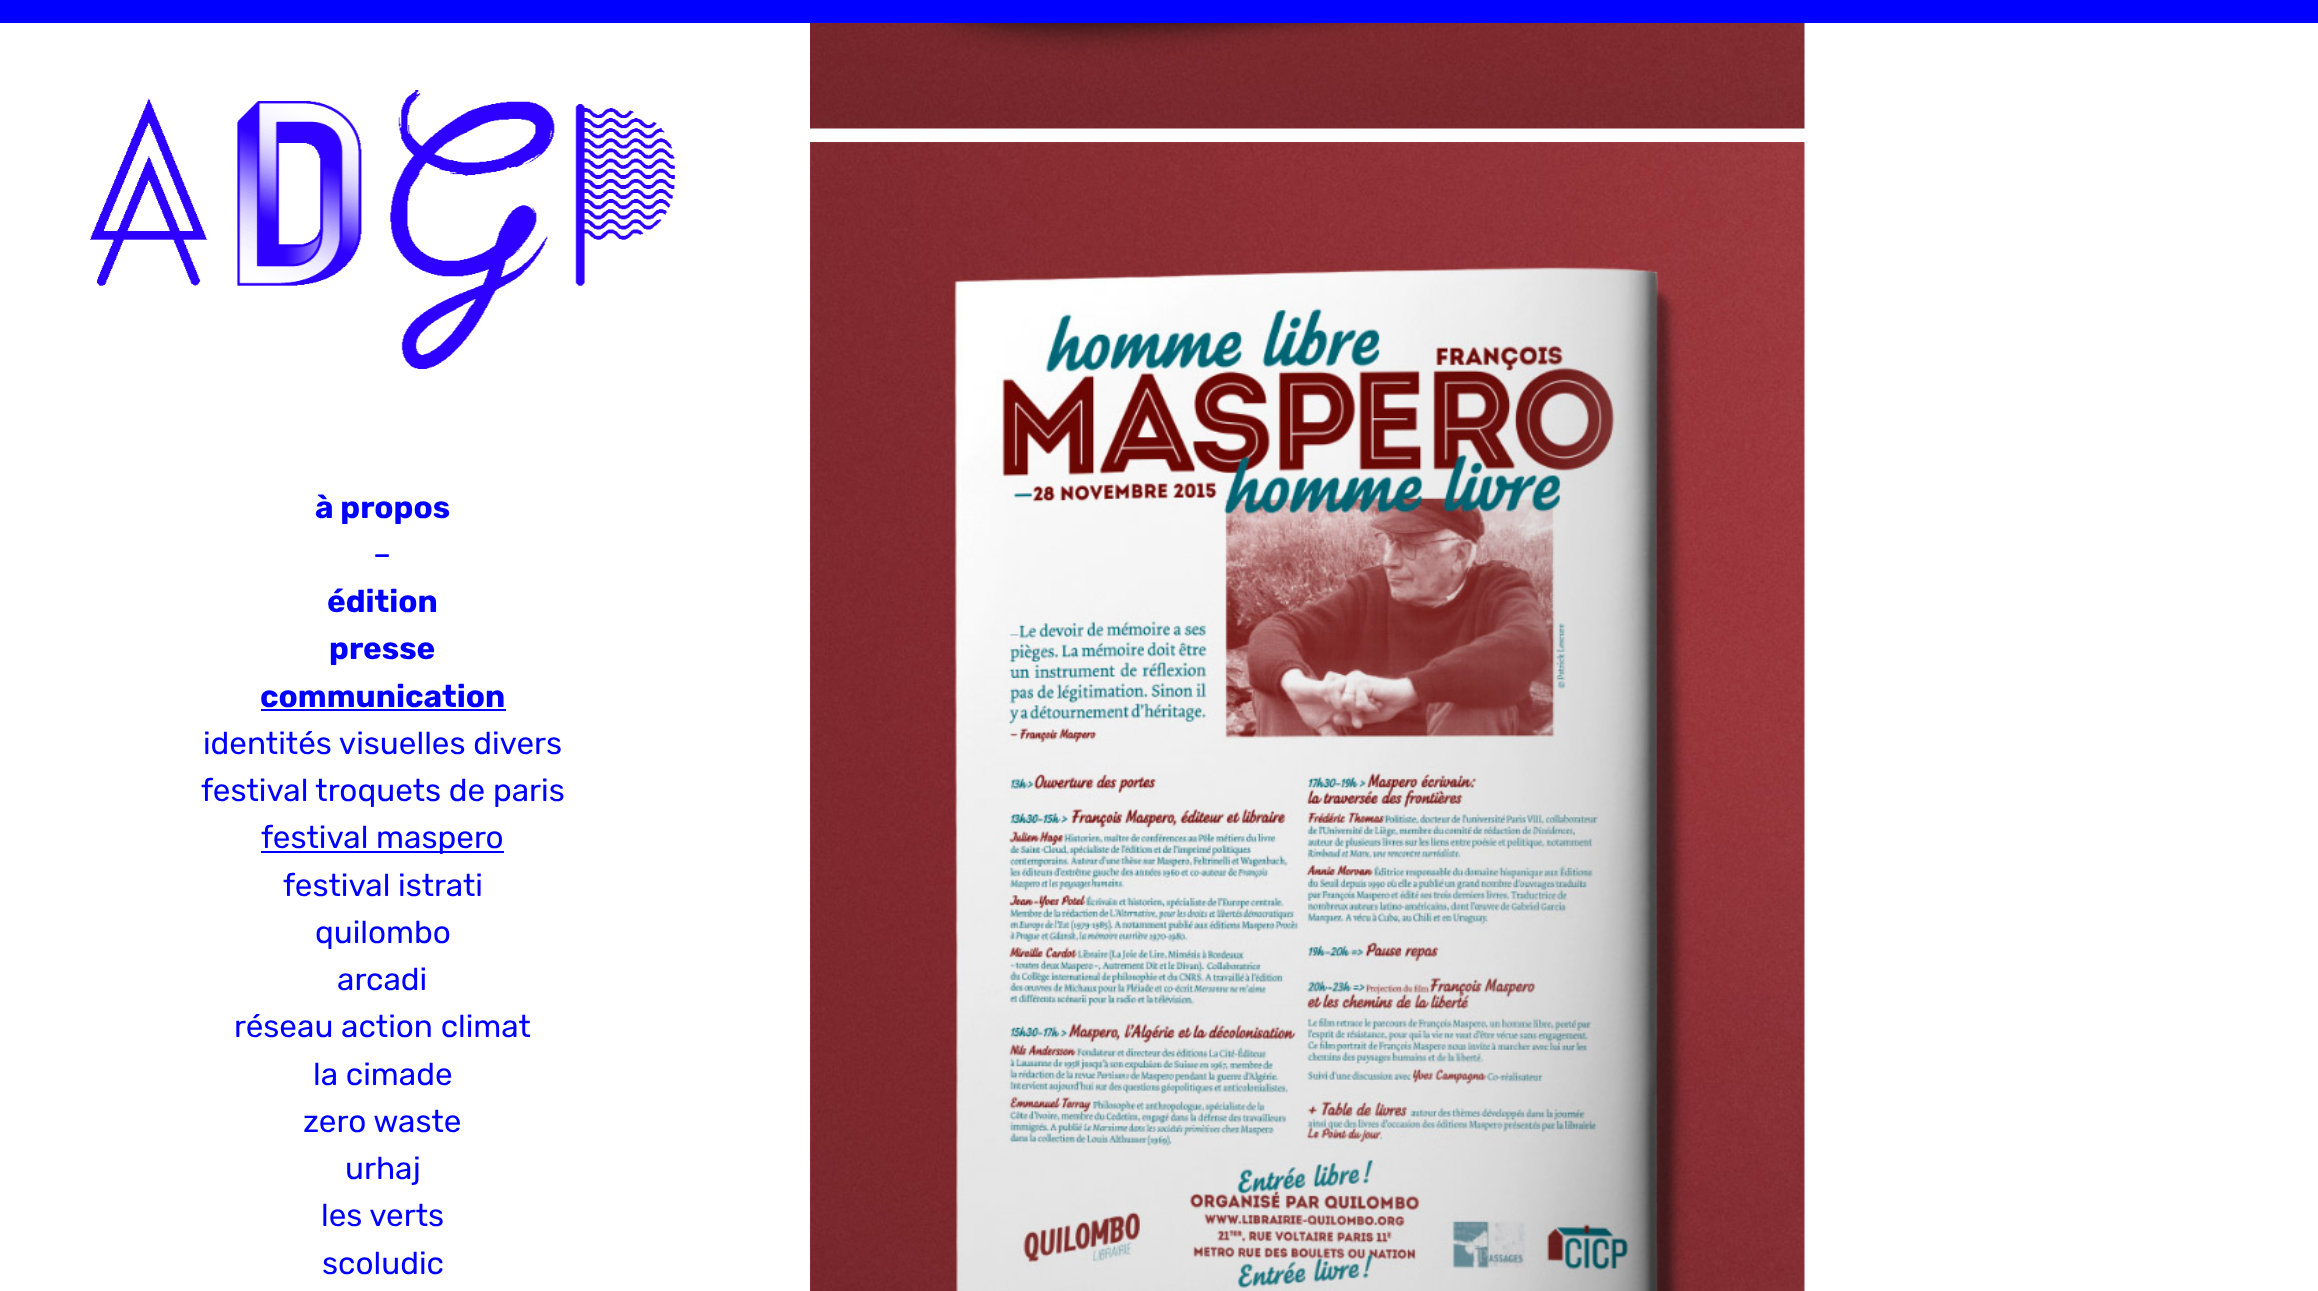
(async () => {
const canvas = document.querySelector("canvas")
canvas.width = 2318
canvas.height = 1291
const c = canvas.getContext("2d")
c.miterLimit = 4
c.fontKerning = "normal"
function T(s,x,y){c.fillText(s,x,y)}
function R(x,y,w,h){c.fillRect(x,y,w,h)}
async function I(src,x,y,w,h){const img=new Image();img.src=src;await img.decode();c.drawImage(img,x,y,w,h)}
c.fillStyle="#fff"
R(0,0,2318,1291)
c.fillStyle="#00f"
R(0,0,2318,23)
await I("1.png",90,90,585,279)
c.font="bold 31.5px Rubik"
T("à propos",315,518)
c.font="31.5px Rubik"
T("–",373,565)
c.font="bold 31.5px Rubik"
T("édition",327,612)
T("presse",329,659)
T("communication",260,707)
R(261,709,245,2)
c.font="31.5px Rubik"
T("identités visuelles divers",203,754)
T("festival troquets de paris",201,801)
R(261,851,243,2)
T("festival maspero",261,848)
T("festival istrati",283,896)
T("quilombo",315,943)
T("arcadi",337,990)
T("réseau action climat",234,1037)
T("la cimade",313,1085)
T("zero waste",303,1132)
T("urhaj",345,1179)
T("les verts",321,1226)
T("scoludic",322,1274)
await I("2.png",810,23,995,106)
await I("3.png",810,142,995,1149)
})()
